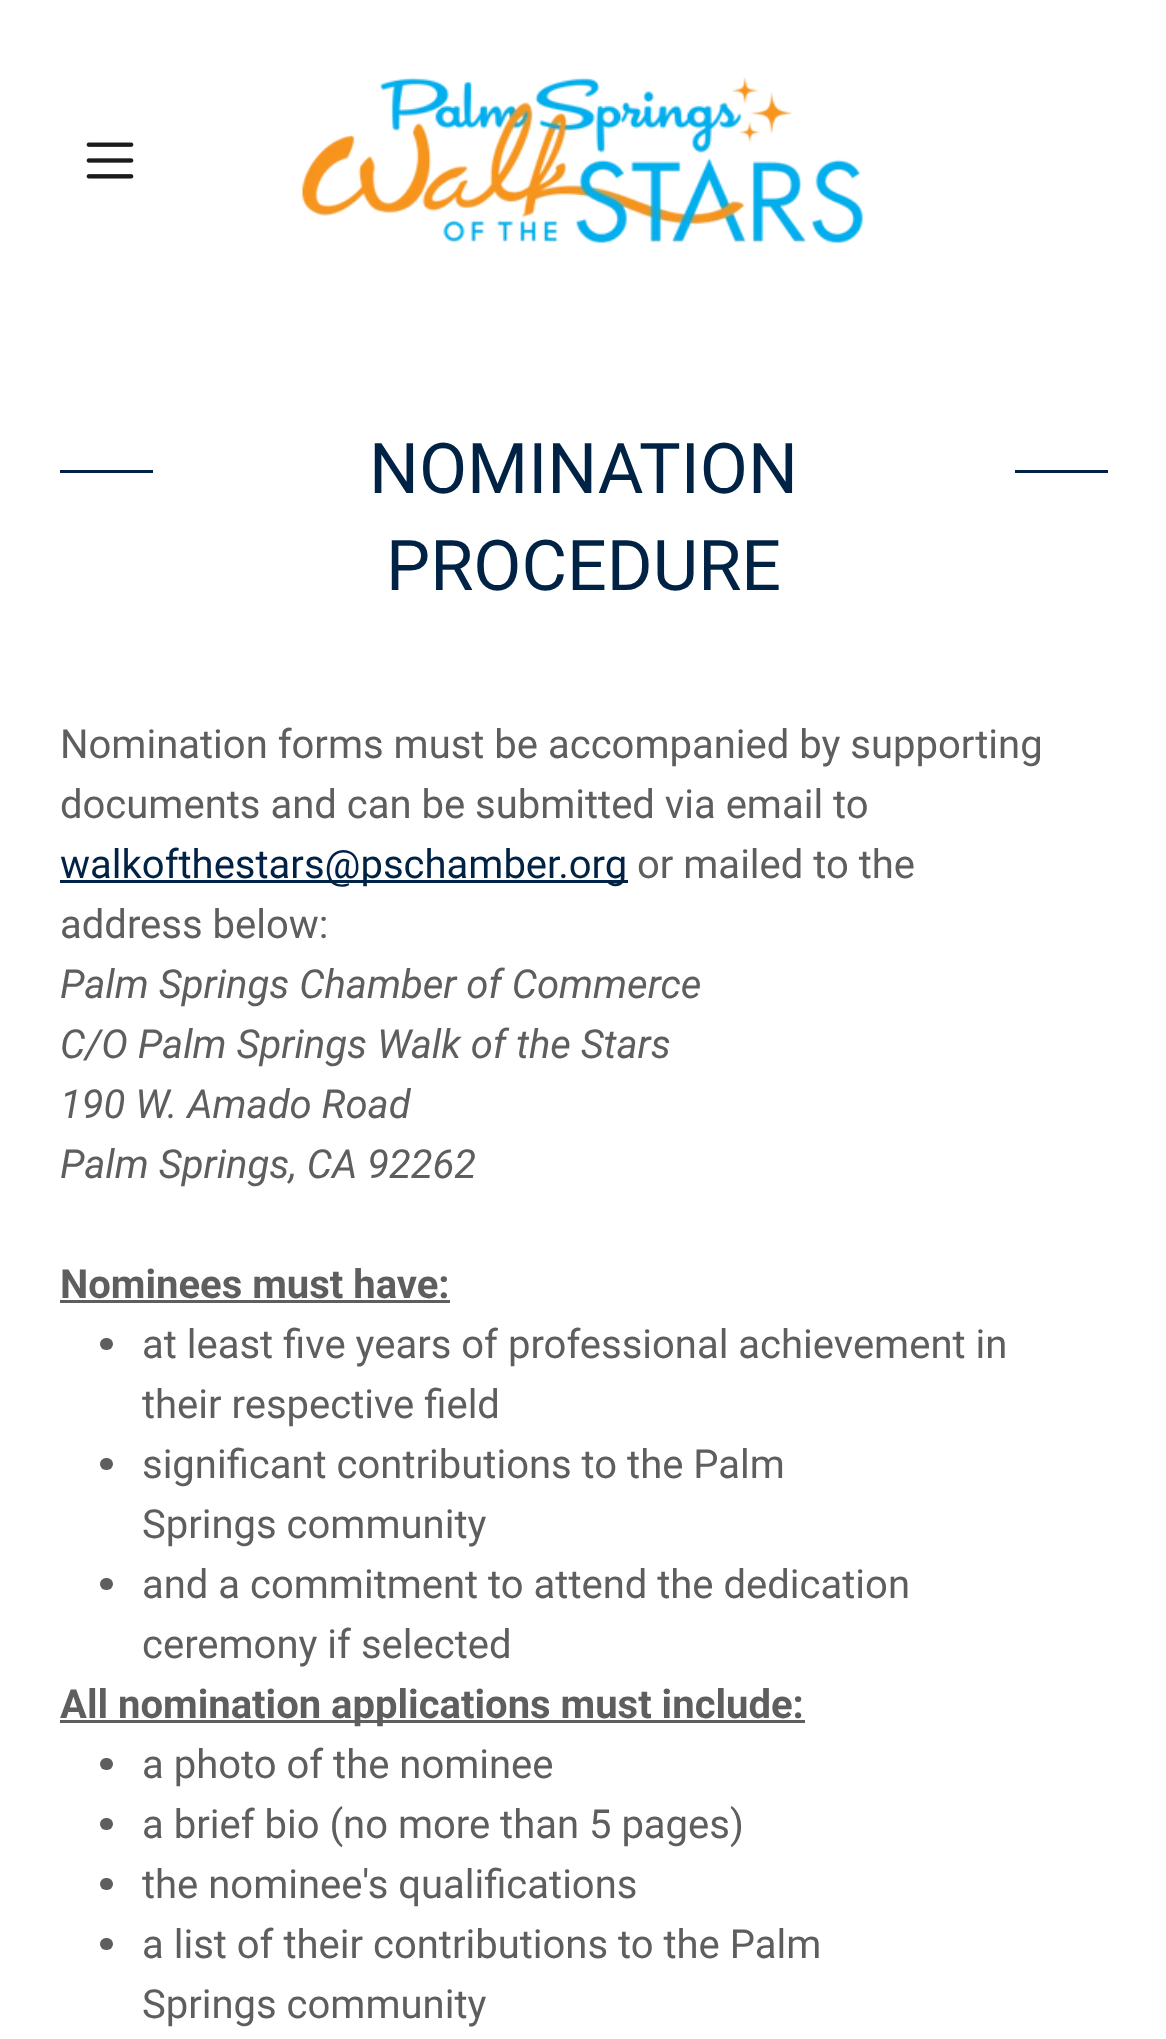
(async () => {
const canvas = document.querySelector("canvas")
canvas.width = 1166
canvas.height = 2039
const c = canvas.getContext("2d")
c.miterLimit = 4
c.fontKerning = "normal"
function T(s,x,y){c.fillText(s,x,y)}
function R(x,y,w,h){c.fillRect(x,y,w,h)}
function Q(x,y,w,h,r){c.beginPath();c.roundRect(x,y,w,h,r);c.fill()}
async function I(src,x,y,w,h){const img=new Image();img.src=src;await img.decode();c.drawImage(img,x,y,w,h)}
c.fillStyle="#fff"
R(0,0,1166,2039)
await I("1.png",86,142,48,37)
await I("2.png",302,77,561,166)
c.fillStyle="#024"
R(60,470,93,3)
c.font="70px Roboto"
T("NOMINATION",369,493)
R(1015,470,93,3)
T("PROCEDURE",386,590)
c.font="40px Roboto"
c.fillStyle="#5e5e5e"
T("Nomination forms must be accompanied by supporting",60,758)
T("documents and can be submitted via email to",60,818)
c.fillStyle="#024"
R(60,880,568,3)
T("walkofthestars@pschamber.org",60,878)
c.fillStyle="#5e5e5e"
T("or mailed to the",637,878)
T("address below:",60,938)
c.font="italic 40px Roboto"
T("Palm Springs Chamber of Commerce",60,998)
T("C/O Palm Springs Walk of the Stars",60,1058)
T("190 W. Amado Road",60,1118)
T("Palm Springs, CA 92262",60,1178)
c.font="bold 40px Roboto"
T("Nominees must have:",60,1298)
R(60,1300,390,3)
Q(100,1338,13,12,6)
c.font="40px Roboto"
T("at least five years of professional achievement in",142,1358)
T("their respective field",142,1418)
Q(100,1458,13,12,6)
T("significant contributions to the Palm",142,1478)
T("Springs community",142,1538)
Q(100,1578,13,12,6)
T("and a commitment to attend the dedication",142,1598)
T("ceremony if selected",142,1658)
R(60,1720,745,3)
c.font="bold 40px Roboto"
T("All nomination applications must include:",60,1718)
Q(100,1758,13,12,6)
c.font="40px Roboto"
T("a photo of the nominee",142,1778)
Q(100,1818,13,12,6)
T("a brief bio (no more than 5 pages)",142,1838)
Q(100,1878,13,12,6)
T("the nominee's qualifications",142,1898)
Q(100,1938,13,12,6)
T("a list of their contributions to the Palm",142,1958)
T("Springs community",142,2018)
})()
